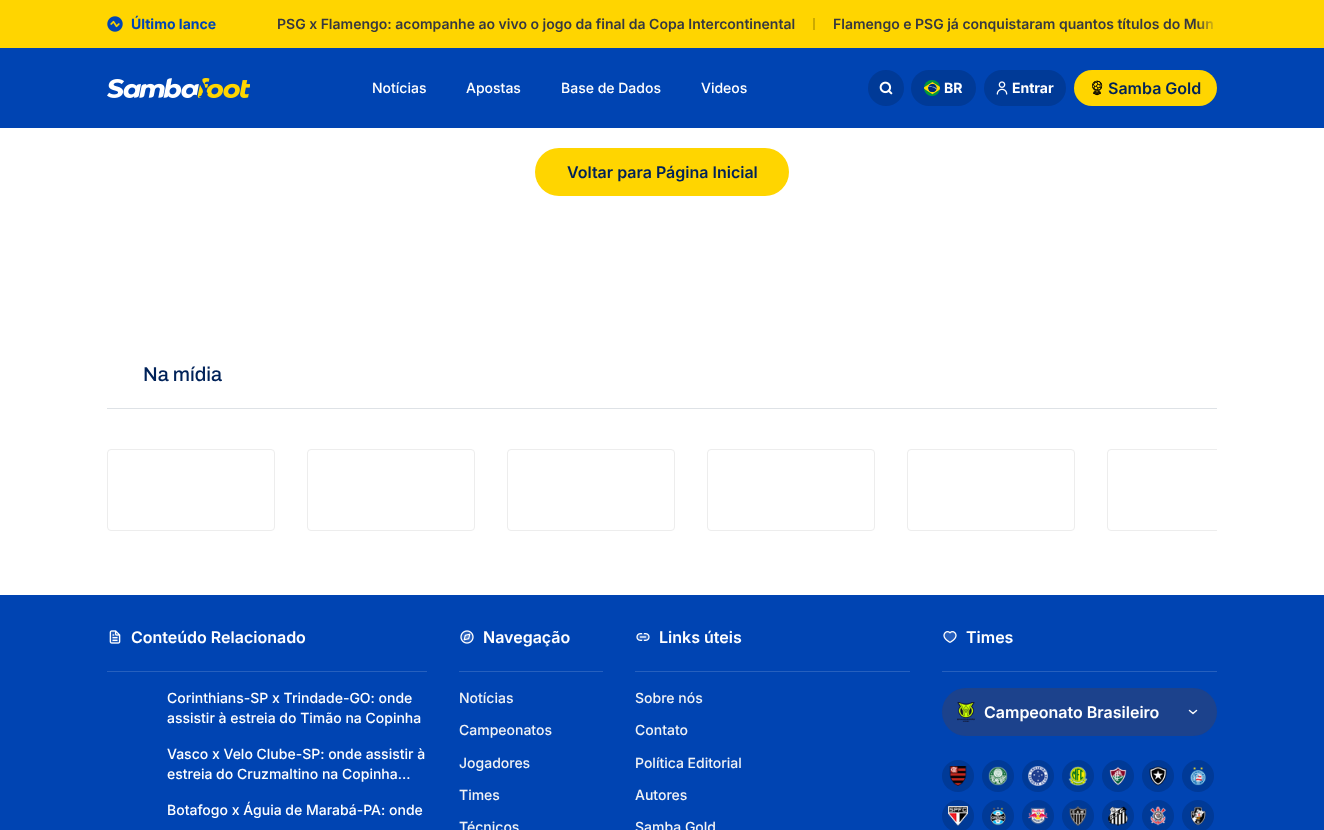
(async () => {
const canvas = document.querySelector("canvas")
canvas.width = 1324
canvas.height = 830
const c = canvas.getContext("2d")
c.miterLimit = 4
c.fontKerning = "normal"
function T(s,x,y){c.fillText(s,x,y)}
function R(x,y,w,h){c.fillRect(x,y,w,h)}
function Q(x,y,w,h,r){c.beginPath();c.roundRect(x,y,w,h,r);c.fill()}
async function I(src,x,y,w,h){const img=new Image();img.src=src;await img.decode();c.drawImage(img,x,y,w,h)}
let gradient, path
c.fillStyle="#fff"
R(0,0,1324,830)
c.fillStyle="#0044b2"
R(0,48,1324,80)
c.fillStyle="#ffd500"
R(0,0,1324,48)
await I("1.png",107,16,16,16)
c.font="bold 14px Inter"
c.fillStyle="#0045b5"
T("Último lance",131,29)
c.font="600 14px Inter"
c.fillStyle="#363840"
T("PSG x Flamengo: acompanhe ao vivo o jogo da final da Copa Intercontinental",277,29)
c.fillStyle="#ca0"
R(813,18,2,12)
c.fillStyle="#363840"
T("Flamengo e PSG já conquistaram quantos títulos do Mun",833,29)
gradient = c.createLinearGradient(1197,24,1217,24)
gradient.addColorStop(0,"#fed40100")
gradient.addColorStop(1,"#fed401")
c.fillStyle = gradient
R(1198,21,15,8)
await I("2.png",107,78,143,20)
c.font="500 14px Inter"
c.fillStyle="#fff"
T("Notícias",372,93)
T("Apostas",466,93)
T("Base de Dados",561,93)
T("Videos",701,93)
c.fillStyle="#003a97"
c.beginPath()
c.arc(886,88,18,0,7)
c.fill()
await I("3.png",879,81,14,14)
Q(911,70,65,36,18)
await I("4.png",924,80,16,16)
c.font="bold 14px Inter"
c.fillStyle="#fff"
T("BR",944,93)
c.fillStyle="#003a97"
Q(984,70,82,36,18)
await I("5.png",996,81,12,14)
c.fillStyle="#fff"
T("Entrar",1012,93)
c.fillStyle="#ffd500"
Q(1074,70,143,36,18)
await I("6.png",1092,80,11,16)
c.font="600 16px Inter"
c.fillStyle="#002259"
T("Samba Gold",1108,94)
c.fillStyle="#ffd500"
Q(535,148,254,48,24)
c.fillStyle="#002259"
T("Voltar para Página Inicial",567,178)
c.fillStyle="#dee2e6"
R(107,408,1110,1)
c.font="500 20px Archivo"
c.fillStyle="#002259"
T("Na mídia",143,381)
c.beginPath()
c.roundRect(107.5,449.5,167,81,3.5)
c.strokeStyle="#ededed"
c.stroke()
c.beginPath()
c.roundRect(307.5,449.5,167,81,3.5)
c.stroke()
c.beginPath()
c.roundRect(507.5,449.5,167,81,3.5)
c.stroke()
c.beginPath()
c.roundRect(707.5,449.5,167,81,3.5)
c.stroke()
c.beginPath()
c.roundRect(907.5,449.5,167,81,3.5)
c.stroke()
c.save()
c.beginPath()
c.rect(107,360,1110,171)
c.clip()
c.beginPath()
c.roundRect(1107.5,449.5,167,81,3.5)
c.stroke()
c.restore()
c.fillStyle="#0044b2"
R(0,595,1324,235)
c.fillStyle="#2660be"
R(107,671,320,1)
await I("7.png",109,630,12,14)
c.font="600 16px Inter"
c.fillStyle="#fff"
T("Conteúdo Relacionado",131,643)
c.font="500 14px Inter"
T("Corinthians-SP x Trindade-GO: onde",167,703)
T("assistir à estreia do Timão na Copinha",167,723)
T("Vasco x Velo Clube-SP: onde assistir à",167,759)
T("estreia do Cruzmaltino na Copinha…",167,779)
T("Botafogo x Águia de Marabá-PA: onde",167,815)
c.fillStyle="#2660be"
R(459,671,144,1)
await I("8.png",460,630,14,14)
c.font="600 16px Inter"
c.fillStyle="#fff"
T("Navegação",483,643)
c.font="500 14px Inter"
c.fillStyle="#f1f3f5"
T("Notícias",459,703)
T("Campeonatos",459,735)
T("Jogadores",459,768)
T("Times",459,800)
T("Técnicos",459,832)
c.fillStyle="#2660be"
R(635,671,275,1)
await I("9.png",636,633,14,8)
c.font="600 16px Inter"
c.fillStyle="#fff"
T("Links úteis",659,643)
c.font="500 14px Inter"
c.fillStyle="#f1f3f5"
T("Sobre nós",635,703)
T("Contato",635,735)
T("Política Editorial",635,768)
T("Autores",635,800)
T("Samba Gold",635,832)
c.fillStyle="#2660be"
R(942,671,275,1)
await I("10.png",943,631,14,12)
c.font="600 16px Inter"
c.fillStyle="#fff"
T("Times",966,643)
c.fillStyle="#1c428c"
Q(942,688,275,48,24)
await I("11.png",957,702,18,20)
c.fillStyle="#fff"
T("Campeonato Brasileiro",984,718)
path = new Path2D("M1189.5 710.5l3.5 3l3.5-3")
c.strokeStyle="#fafbfc"
c.lineWidth=1.5
c.lineCap="round"
c.lineJoin="round"
c.stroke(path)
c.fillStyle="#003a97"
c.beginPath()
c.arc(958,776,16,0,7)
c.fill()
await I("12.png",949,766,18,20)
c.beginPath()
c.arc(998,776,16,0,7)
c.fill()
await I("13.png",988,766,20,20)
c.beginPath()
c.arc(1038,776,16,0,7)
c.fill()
await I("14.png",1028,766,20,20)
c.beginPath()
c.arc(1078,776,16,0,7)
c.fill()
await I("15.png",1068,766,20,20)
c.beginPath()
c.arc(1118,776,16,0,7)
c.fill()
await I("16.png",1109,766,18,20)
c.beginPath()
c.arc(1158,776,16,0,7)
c.fill()
await I("17.png",1149,766,18,20)
c.beginPath()
c.arc(1198,776,16,0,7)
c.fill()
await I("18.png",1190,767,16,19)
c.beginPath()
c.arc(958,816,16,0,7)
c.fill()
await I("19.png",948,806,20,20)
c.beginPath()
c.arc(998,816,16,0,7)
c.fill()
await I("20.png",989,807,18,19)
c.beginPath()
c.arc(1038,816,16,0,7)
c.fill()
await I("21.png",1028,807,20,18)
c.beginPath()
c.arc(1078,816,16,0,7)
c.fill()
await I("22.png",1069,806,18,20)
c.beginPath()
c.arc(1118,816,16,0,7)
c.fill()
await I("23.png",1108,806,20,20)
c.beginPath()
c.arc(1158,816,16,0,7)
c.fill()
await I("24.png",1150,806,16,20)
c.beginPath()
c.arc(1198,816,16,0,7)
c.fill()
await I("25.png",1190,806,16,20)
})()
